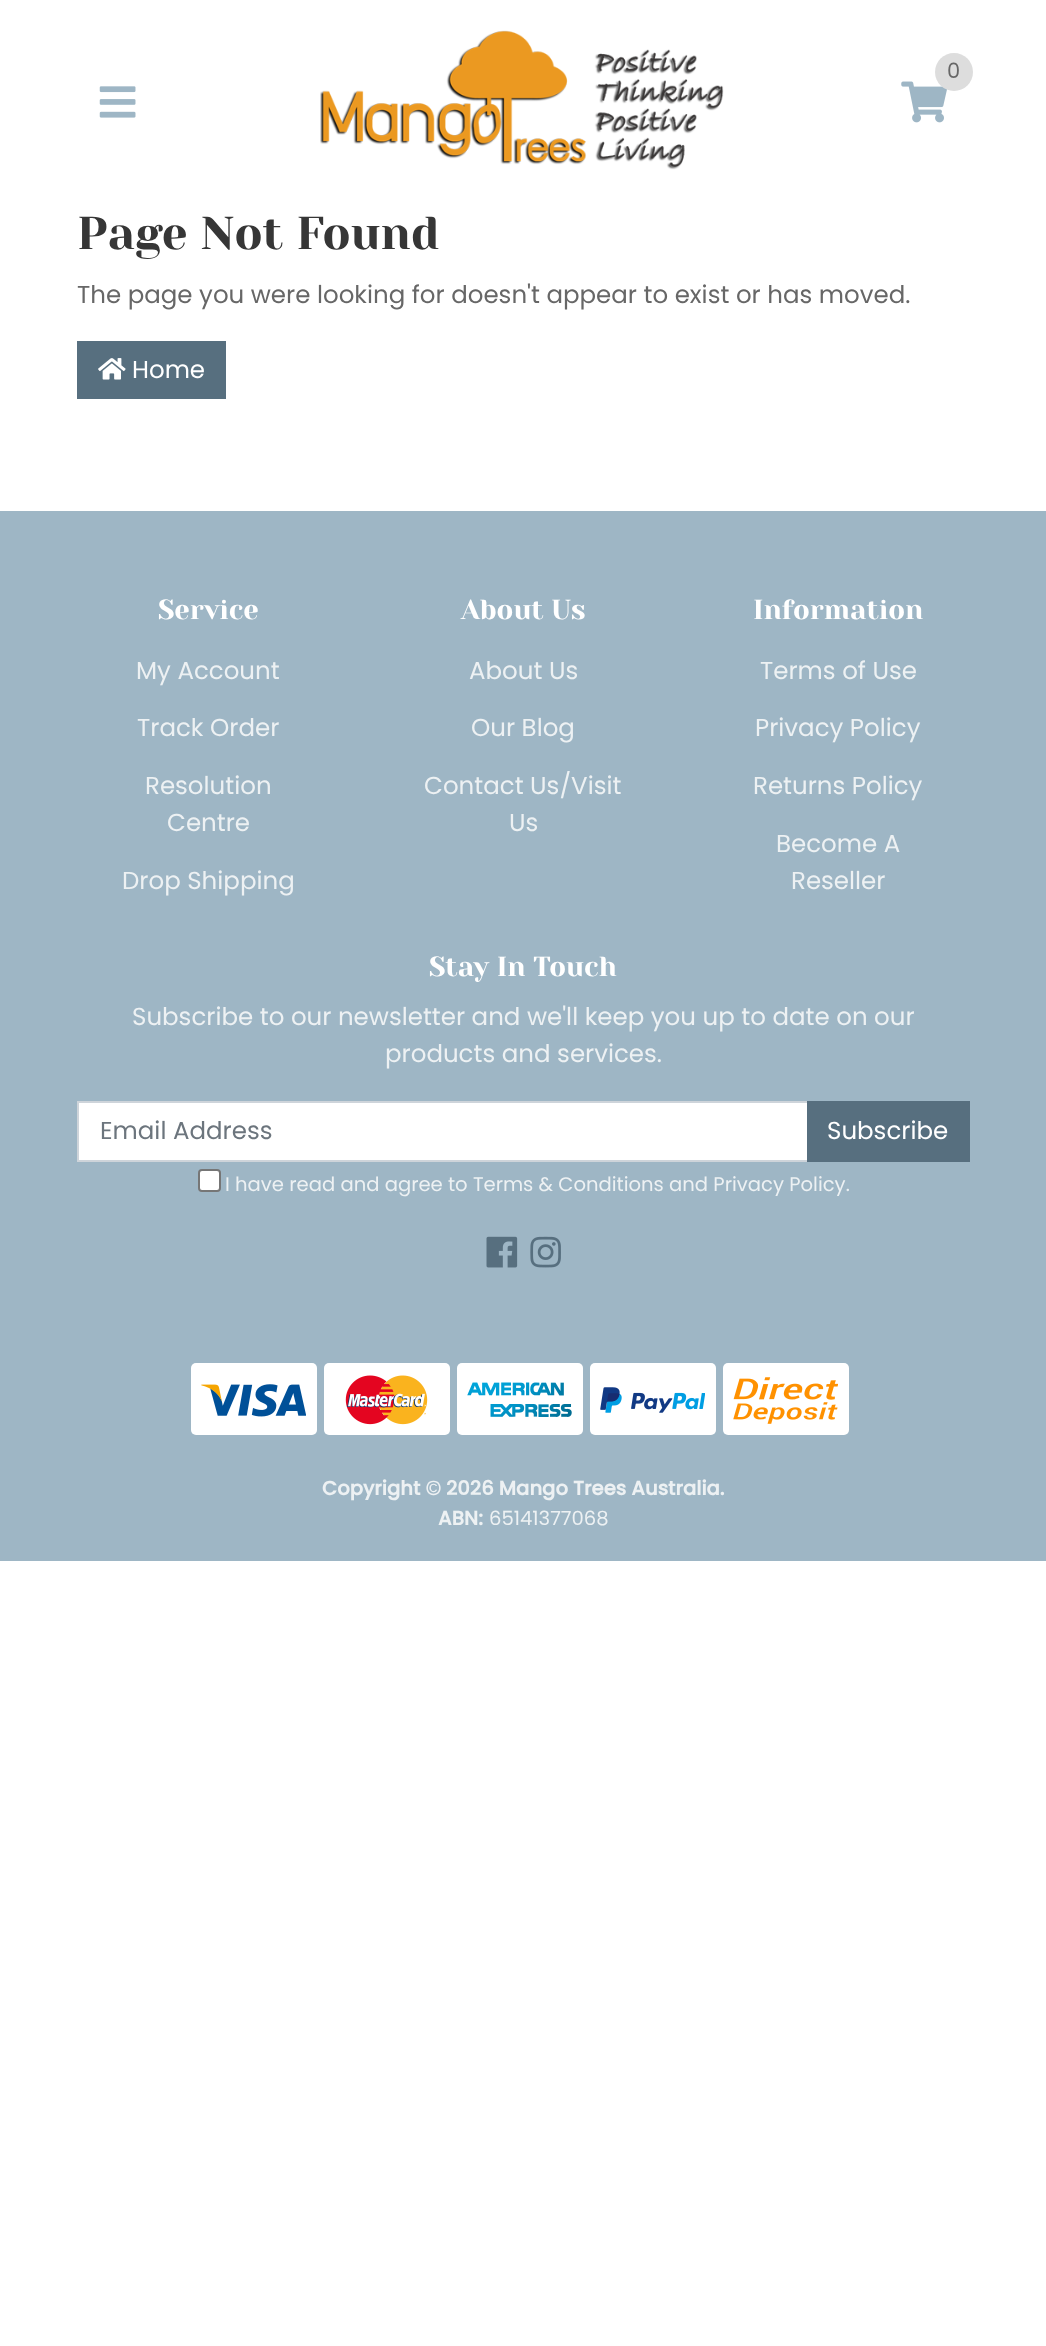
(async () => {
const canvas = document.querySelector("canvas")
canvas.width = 1046
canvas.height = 2346
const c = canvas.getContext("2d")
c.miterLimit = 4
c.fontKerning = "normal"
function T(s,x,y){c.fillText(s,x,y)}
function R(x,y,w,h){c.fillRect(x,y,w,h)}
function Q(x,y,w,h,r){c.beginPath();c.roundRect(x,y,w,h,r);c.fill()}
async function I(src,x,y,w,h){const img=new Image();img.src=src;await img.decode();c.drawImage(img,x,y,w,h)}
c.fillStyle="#fff"
R(0,0,1046,2346)
await I("1.png",320,30,404,140)
await I("2.png",901,81,46,42)
c.fillStyle="#ddd"
c.beginPath()
c.arc(954,72,19,0,7)
c.fill()
c.font="21px Poppins"
c.fillStyle="#676767"
T("0",947,78)
await I("3.png",99,86,37,32)
c.font="46px Yeseva One"
c.fillStyle="#363636"
T("Page Not Found",77,249)
c.font="24.5px Poppins"
c.fillStyle="#676767"
T("The page you were looking for doesn't appear to exist or has moved.",77,303)
c.fillStyle="#576f7f"
R(77,341,149,58)
await I("4.png",98,358,28,22)
c.fillStyle="#fff"
T("Home",132,378)
c.fillStyle="#9eb6c5"
R(0,511,1046,1050)
c.font="27.5px Yeseva One"
c.fillStyle="#fff"
T("Service",158,619)
c.font="24.5px Poppins"
c.fillStyle="#edf1f3"
T("My Account",136,679)
T("Track Order",137,736)
T("Resolution",145,794)
T("Centre",167,831)
T("Drop Shipping",122,889)
c.font="27.5px Yeseva One"
c.fillStyle="#fff"
T("About Us",461,619)
c.font="24.5px Poppins"
c.fillStyle="#edf1f3"
T("About Us",469,679)
T("Our Blog",471,736)
T("Contact Us/Visit",424,794)
T("Us",509,831)
c.font="27.5px Yeseva One"
c.fillStyle="#fff"
T("Information",753,619)
c.font="24.5px Poppins"
c.fillStyle="#edf1f3"
T("Terms of Use",760,679)
T("Privacy Policy",755,736)
T("Returns Policy",753,794)
T("Become A",776,852)
T("Reseller",791,889)
c.font="27.5px Yeseva One"
c.fillStyle="#fff"
T("Stay In Touch",429,976)
c.font="24.5px Poppins"
c.fillStyle="#edf1f3"
T("Subscribe to our newsletter and we'll keep you up to date on our",132,1025)
T("products and services.",385,1062)
c.fillStyle="#fff"
c.beginPath()
c.rect(78,1102,730,59)
c.fill()
c.strokeStyle="#ced4da"
c.lineWidth=2
c.stroke()
c.fillStyle="#6c757d"
T("Email Address",100,1139)
c.fillStyle="#576f7f"
R(807,1101,163,61)
c.fillStyle="#fff"
T("Subscribe",827,1139)
c.beginPath()
c.roundRect(199,1170,21,21,3)
c.fill()
c.strokeStyle="#767676"
c.stroke()
c.font="19.6px Poppins"
c.fillStyle="#edf1f3"
T("I have read and agree to Terms & Conditions and Privacy Policy.",225,1191)
await I("5.png",486,1236,32,32)
await I("6.png",530,1236,31,32)
c.fillStyle="#fff"
Q(191,1363,126,72,5)
await I("7.png",201,1384,105,33)
Q(324,1363,126,72,5)
await I("8.png",345,1375,83,50)
Q(457,1363,126,72,5)
await I("9.png",467,1382,105,35)
Q(590,1363,126,72,5)
await I("10.png",600,1387,105,26)
Q(723,1363,126,72,5)
await I("11.png",733,1377,105,47)
c.font="bold 19.6px Poppins"
c.fillStyle="#edf1f3"
T("Copyright © 2026 Mango Trees Australia.",322,1495)
T("ABN:",438,1525)
c.font="19.6px Poppins"
T("65141377068",489,1525)
})()
